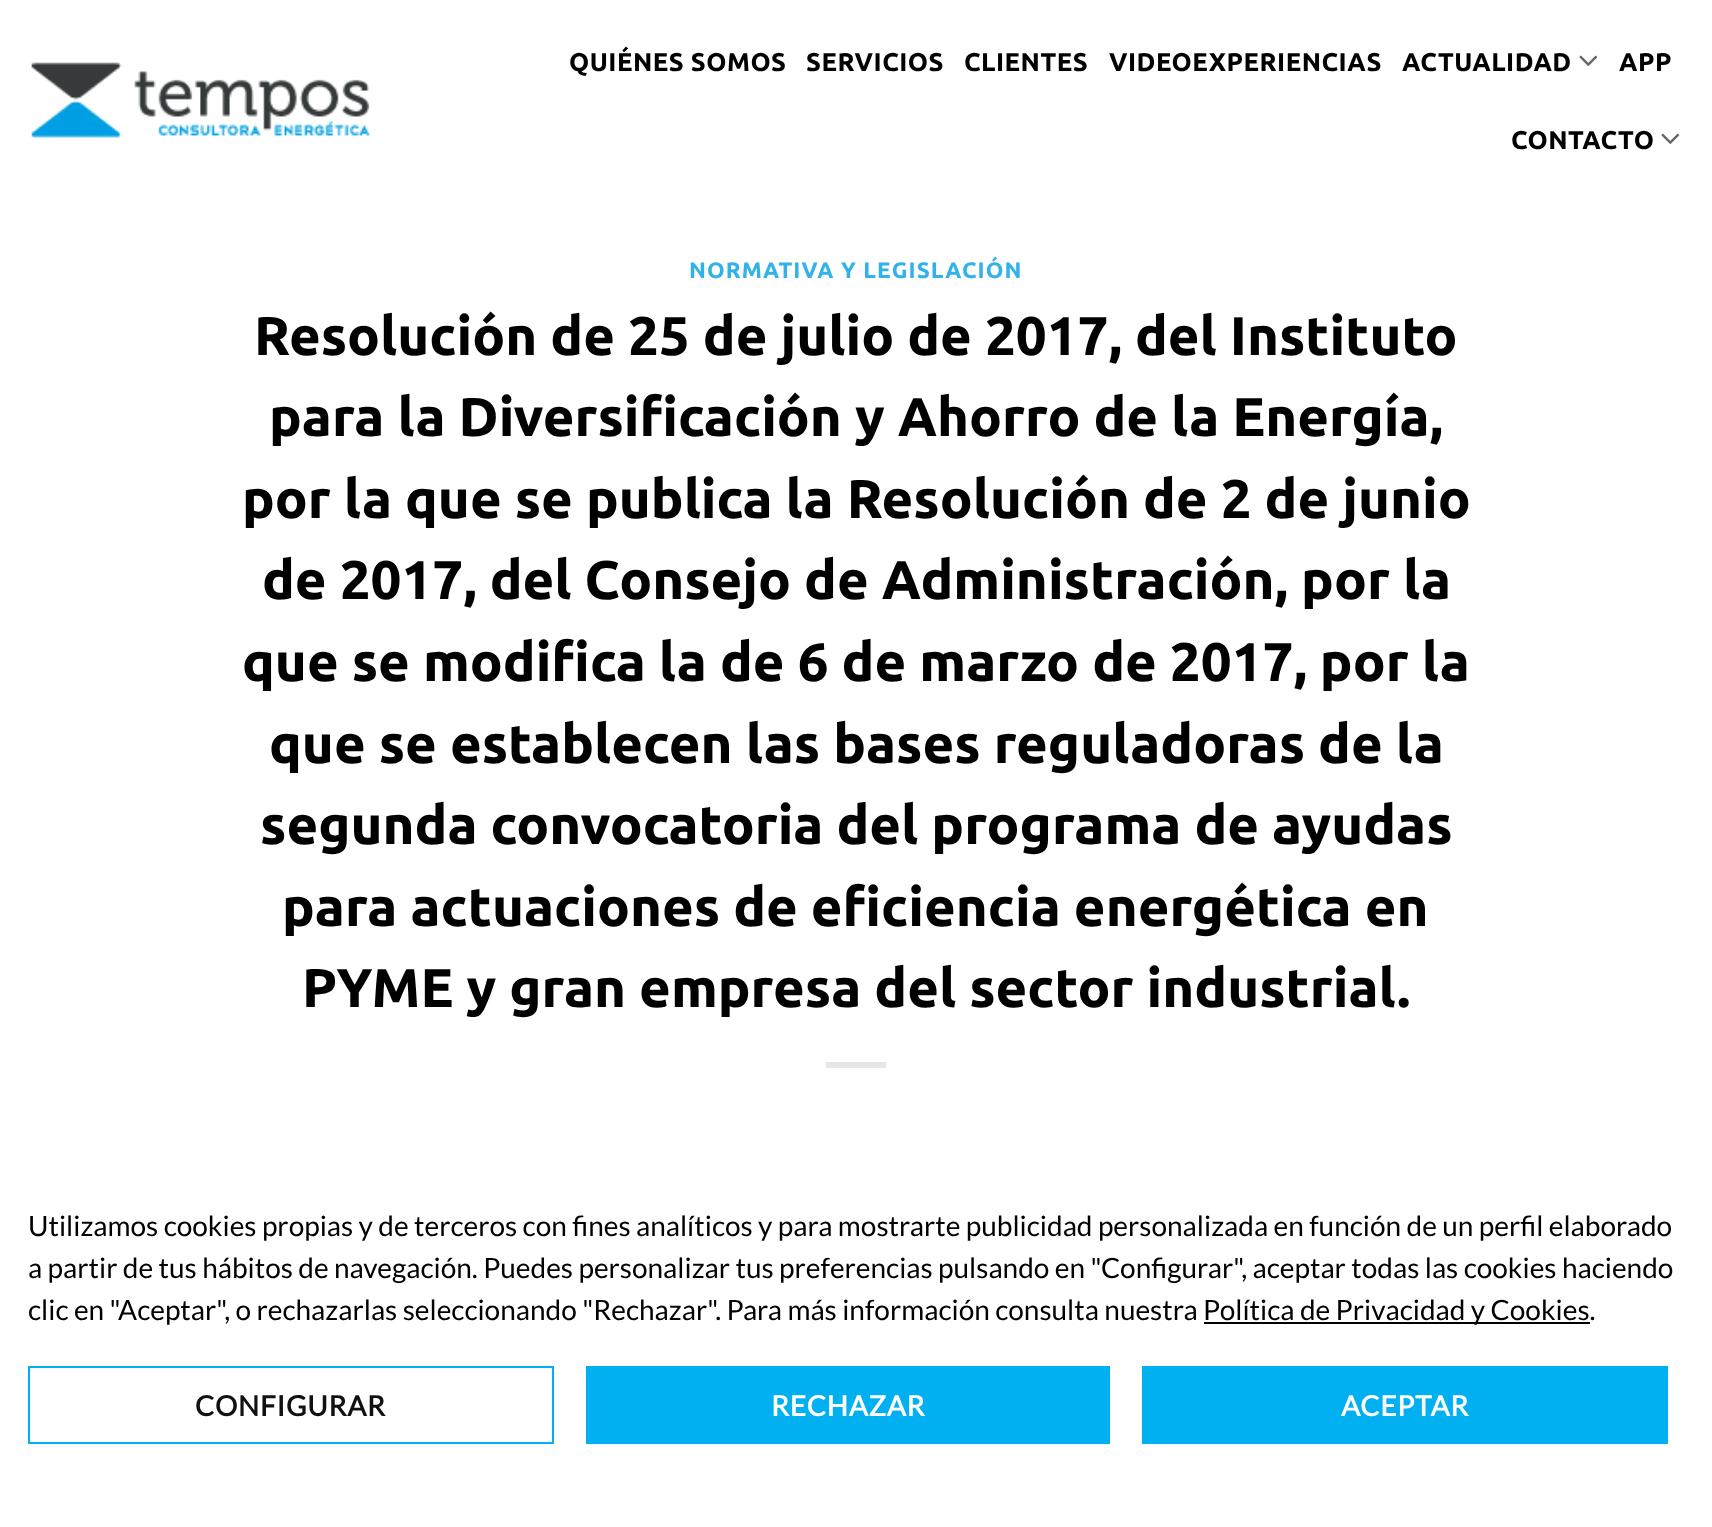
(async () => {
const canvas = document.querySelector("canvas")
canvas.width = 1712
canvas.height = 1527
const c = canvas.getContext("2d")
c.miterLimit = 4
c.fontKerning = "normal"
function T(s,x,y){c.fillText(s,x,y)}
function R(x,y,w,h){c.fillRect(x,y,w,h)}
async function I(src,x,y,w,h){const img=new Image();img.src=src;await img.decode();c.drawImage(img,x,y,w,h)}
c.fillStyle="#fff"
R(0,0,1712,1527)
await I("1.png",31,62,340,76)
c.letterSpacing="0.5px"
c.font="bold 25.6px Ubuntu"
c.fillStyle="#000"
T("QUIÉNES SOMOS",569,71)
T("SERVICIOS",806,71)
T("CLIENTES",964,71)
T("VIDEOEXPERIENCIAS",1109,71)
T("ACTUALIDAD",1402,71)
await I("2.png",1579,55,19,11)
T("APP",1619,71)
T("CONTACTO",1511,149)
await I("2.png",1661,133,19,11)
c.letterSpacing="1.1px"
c.font="bold 22.4px Ubuntu"
c.fillStyle="#33b2e9"
T("NORMATIVA Y LEGISLACIÓN",689,278)
c.letterSpacing="0px"
c.font="bold 54.4px Ubuntu"
c.fillStyle="#000"
T("Resolución de 25 de julio de 2017, del Instituto",254,355)
T("para la Diversificación y Ahorro de la Energía,",269,436)
T("por la que se publica la Resolución de 2 de junio",242,518)
T("de 2017, del Consejo de Administración, por la",262,599)
T("que se modifica la de 6 de marzo de 2017, por la",242,681)
T("que se establecen las bases reguladoras de la",269,763)
T("segunda convocatoria del programa de ayudas",260,844)
T("para actuaciones de eficiencia energética en",282,926)
T("PYME y gran empresa del sector industrial.",302,1007)
c.fillStyle="#e6e6e6"
R(826,1062,60,6)
c.font="28px Lato"
c.fillStyle="#000"
T("Utilizamos cookies propias y de terceros con fines analíticos y para mostrarte publicidad personalizada en función de un perfil elaborado",28,1236)
T("a partir de tus hábitos de navegación. Puedes personalizar tus preferencias pulsando en \"Configurar\", aceptar todas las cookies haciendo",28,1278)
T("clic en \"Aceptar\", o rechazarlas seleccionando \"Rechazar\". Para más información consulta nuestra",28,1320)
R(1204,1322,386,2)
T("Política de Privacidad y Cookies.",1203,1320)
c.strokeStyle="#00b0f0"
c.lineWidth=2
c.strokeRect(29,1367,524,76)
c.letterSpacing="0.75px"
c.font="bold 28px Lato"
c.fillStyle="#111"
T("CONFIGURAR",195,1416)
c.fillStyle="#00b0f0"
R(586,1366,524,78)
c.fillStyle="#fff"
T("RECHAZAR",771,1416)
c.fillStyle="#00b0f0"
R(1142,1366,526,78)
c.fillStyle="#fff"
T("ACEPTAR",1341,1416)
})()
